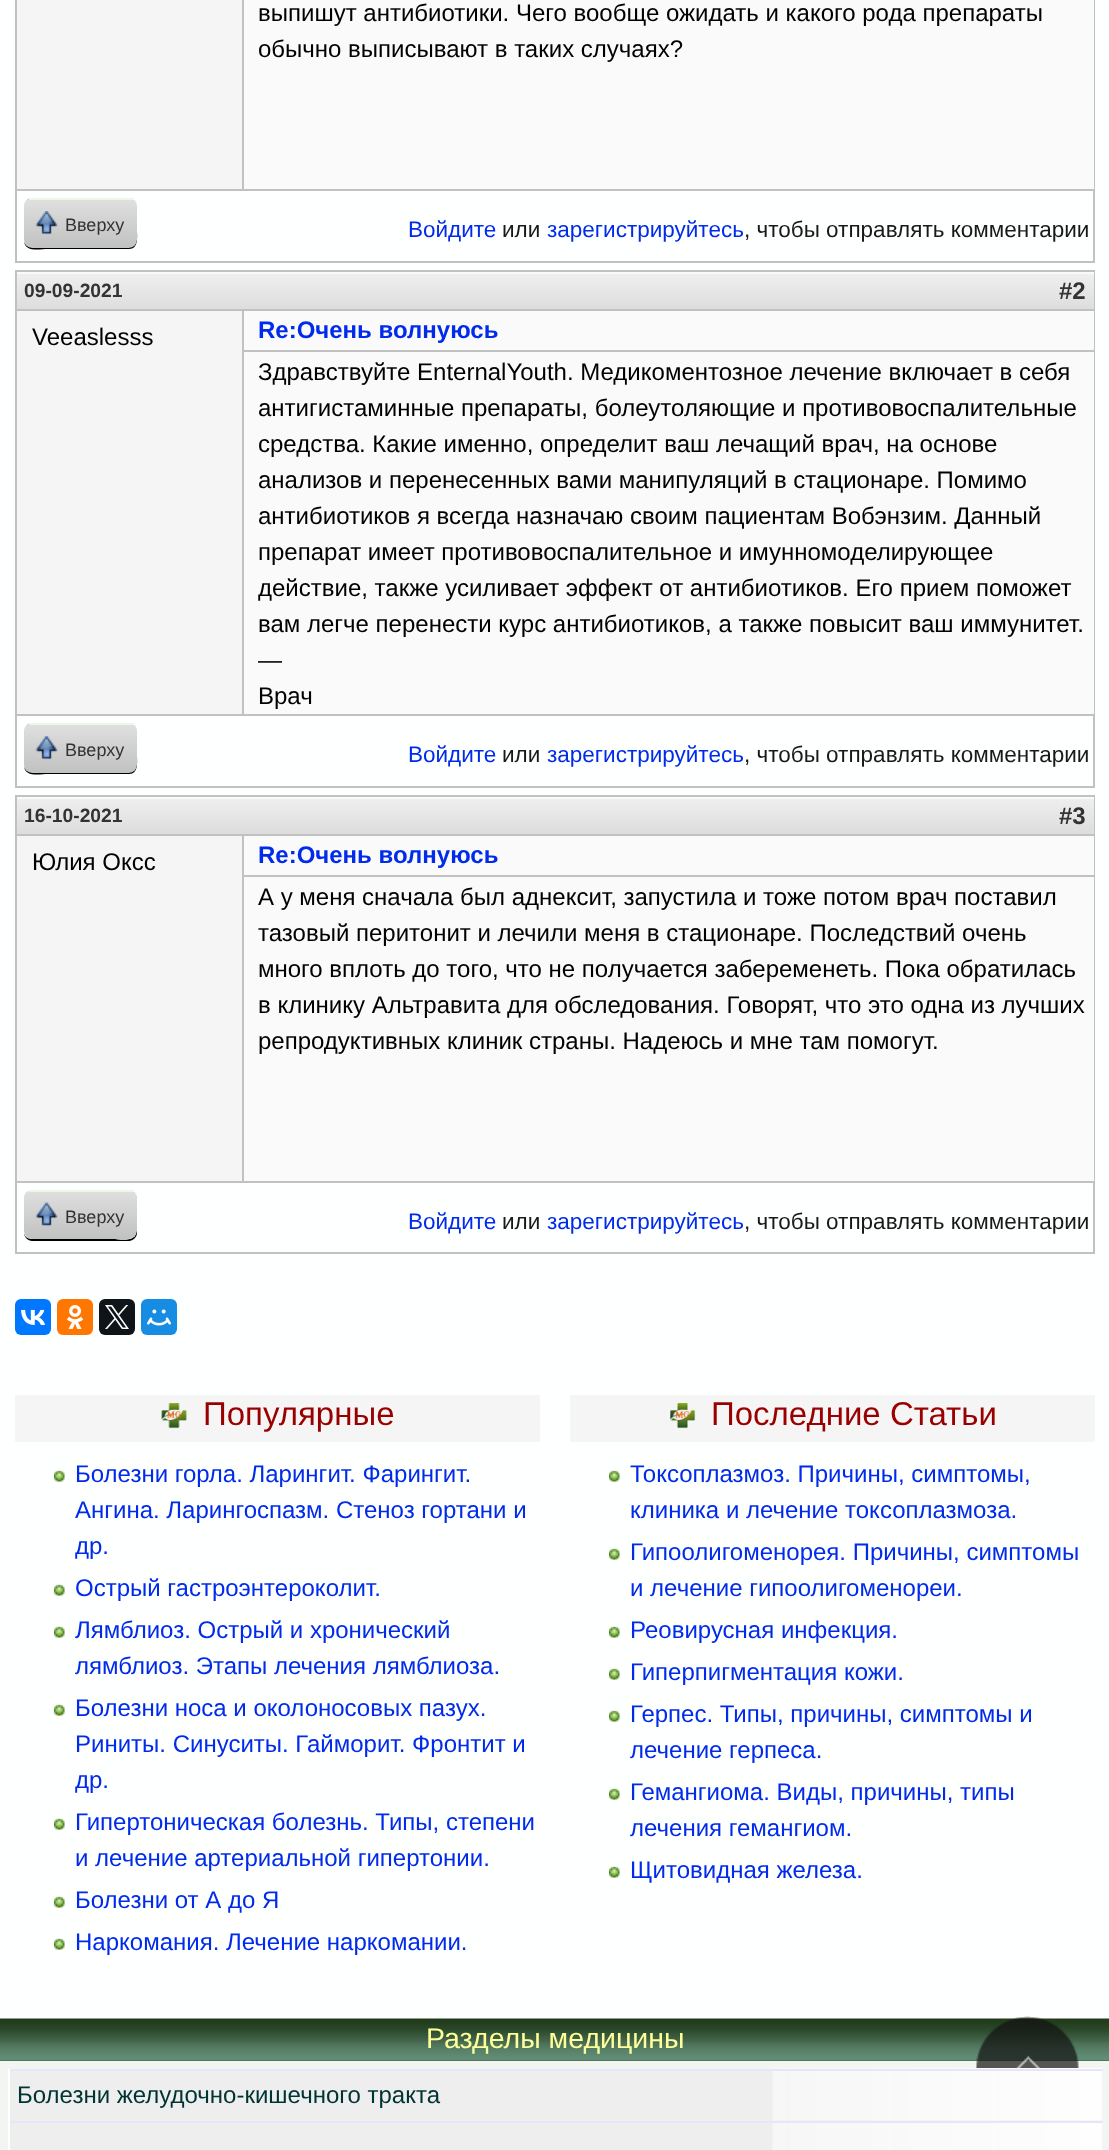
(async () => {
const canvas = document.querySelector("canvas")
canvas.width = 1109
canvas.height = 2150
const c = canvas.getContext("2d")
c.miterLimit = 4
c.fontKerning = "normal"
function T(s,x,y){c.fillText(s,x,y)}
function R(x,y,w,h){c.fillRect(x,y,w,h)}
function Q(x,y,w,h,r){c.beginPath();c.roundRect(x,y,w,h,r);c.fill()}
async function I(src,x,y,w,h){const img=new Image();img.src=src;await img.decode();c.drawImage(img,x,y,w,h)}
let gradient, path
c.fillStyle="#feffff"
R(0,0,1109,2150)
c.strokeStyle="#c1c1c1"
c.lineWidth=2
c.strokeRect(16,-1,1078,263)
c.fillStyle="#f5f5f5"
R(17,0,225,189)
c.fillStyle="#fafafa"
R(244,0,850,189)
c.fillStyle="#c1c1c1"
R(242,0,2,189)
c.font="24px Liberation Sans"
c.fillStyle="#000"
T("выпишут антибиотики. Чего вообще ожидать и какого рода препараты",258,21)
T("обычно выписывают в таких случаях?",258,57)
c.fillStyle="#c1c1c1"
R(17,189,1077,2)
c.fillStyle="#000"
path = new Path2D("M24 240c0 13 16 9 24 9h81c10 0 8-13 8-19l-1-25v37l-1 2c-1 2-3 3-4 3h-101l-4-2c-1-1-2-3-2-5z")
c.fill(path)
c.save()
c.beginPath()
c.roundRect(24,198,113,50,8)
c.clip()
gradient = c.createLinearGradient(24,152,24,200)
gradient.addColorStop(0,"#dfdfdf")
gradient.addColorStop(1,"#c1c1c1")
c.fillStyle = gradient
R(24,198,113,2)
gradient = c.createLinearGradient(24,200,24,248)
gradient.addColorStop(0,"#dfdfdf")
gradient.addColorStop(1,"#c1c1c1")
c.fillStyle = gradient
c.beginPath()
c.roundRect(24,200,113,48,[0,0,8,8])
c.fill()
c.restore()
c.fillStyle="#eaf8e4"
R(29,198,105,2)
await I("1.png",35,211,23,24)
c.font="18px Liberation Sans"
c.fillStyle="#333"
T("Вверху",65,231)
c.font="22.5px Liberation Sans"
c.fillStyle="#002beb"
T("Войдите",408,237)
c.fillStyle="#191919"
T("или",502,237)
c.fillStyle="#002beb"
T("зарегистрируйтесь",547,237)
c.fillStyle="#191919"
T(", чтобы отправлять комментарии",744,237)
c.strokeRect(16,271,1078,516)
gradient = c.createLinearGradient(17,273,17,309)
gradient.addColorStop(0,"#efefef")
gradient.addColorStop(1,"#ddd")
c.fillStyle = gradient
R(17,274,1077,35)
c.fillStyle="#fafafa"
R(17,272,1077,2)
c.fillStyle="#c1c1c1"
R(17,309,1077,2)
c.font="bold 19.25px Liberation Sans"
c.fillStyle="#333"
T("09-09-2021",24,297)
c.font="bold 24px Liberation Sans"
T("#2",1059,299)
c.fillStyle="#f5f5f5"
R(17,311,225,403)
c.font="24px Liberation Sans"
c.fillStyle="#000"
T("Veeaslesss",32,345)
c.fillStyle="#fafafa"
R(244,311,850,403)
c.fillStyle="#c1c1c1"
R(242,311,2,403)
R(243,350,851,2)
c.font="bold 24px Liberation Sans"
c.fillStyle="#002beb"
T("Re:Очень волнуюсь",258,338)
c.font="24px Liberation Sans"
c.fillStyle="#000"
T("Здравствуйте EnternalYouth. Медикоментозное лечение включает в себя",258,380)
T("антигистаминные препараты, болеутоляющие и противовоспалительные",258,416)
T("средства. Какие именно, определит ваш лечащий врач, на основе",258,452)
T("анализов и перенесенных вами манипуляций в стационаре. Помимо",258,488)
T("антибиотиков я всегда назначаю своим пациентам Вобэнзим. Данный",258,524)
T("препарат имеет противовоспалительное и имунномоделирующее",258,560)
T("действие, также усиливает эффект от антибиотиков. Его прием поможет",258,596)
T("вам легче перенести курс антибиотиков, а также повысит ваш иммунитет.",258,632)
T("—",258,668)
T("Врач",258,704)
c.fillStyle="#c1c1c1"
R(17,714,1077,2)
c.fillStyle="#000"
path = new Path2D("M24 765c0 13 16 9 24 9h81c10 0 8-13 8-19l-1-25v37l-1 2c-1 2-3 3-4 3h-101l-4-2c-1-1-2-3-2-5z")
c.fill(path)
c.save()
c.beginPath()
c.roundRect(24,723,113,50,8)
c.clip()
gradient = c.createLinearGradient(24,677,24,725)
gradient.addColorStop(0,"#dfdfdf")
gradient.addColorStop(1,"#c1c1c1")
c.fillStyle = gradient
R(24,723,113,2)
gradient = c.createLinearGradient(24,725,24,773)
gradient.addColorStop(0,"#dfdfdf")
gradient.addColorStop(1,"#c1c1c1")
c.fillStyle = gradient
c.beginPath()
c.roundRect(24,725,113,48,[0,0,8,8])
c.fill()
c.restore()
c.fillStyle="#eaf8e4"
R(29,723,105,2)
await I("1.png",35,736,23,24)
c.font="18px Liberation Sans"
c.fillStyle="#333"
T("Вверху",65,756)
c.font="22.5px Liberation Sans"
c.fillStyle="#002beb"
T("Войдите",408,762)
c.fillStyle="#191919"
T("или",502,762)
c.fillStyle="#002beb"
T("зарегистрируйтесь",547,762)
c.fillStyle="#191919"
T(", чтобы отправлять комментарии",744,762)
c.strokeRect(16,796,1078,457)
gradient = c.createLinearGradient(17,798,17,834)
gradient.addColorStop(0,"#efefef")
gradient.addColorStop(1,"#ddd")
c.fillStyle = gradient
R(17,799,1077,35)
c.fillStyle="#fafafa"
R(17,797,1077,2)
c.fillStyle="#c1c1c1"
R(17,834,1077,2)
c.font="bold 19.25px Liberation Sans"
c.fillStyle="#333"
T("16-10-2021",24,822)
c.font="bold 24px Liberation Sans"
T("#3",1059,824)
c.fillStyle="#f5f5f5"
R(17,836,225,345)
c.font="24px Liberation Sans"
c.fillStyle="#000"
T("Юлия Оксс",32,870)
c.fillStyle="#fafafa"
R(244,836,850,345)
c.fillStyle="#c1c1c1"
R(242,836,2,345)
R(243,875,851,2)
c.font="bold 24px Liberation Sans"
c.fillStyle="#002beb"
T("Re:Очень волнуюсь",258,863)
c.font="24px Liberation Sans"
c.fillStyle="#000"
T("А у меня сначала был аднексит, запустила и тоже потом врач поставил",258,905)
T("тазовый перитонит и лечили меня в стационаре. Последствий очень",258,941)
T("много вплоть до того, что не получается забеременеть. Пока обратилась",258,977)
T("в клинику Альтравита для обследования. Говорят, что это одна из лучших",258,1013)
T("репродуктивных клиник страны. Надеюсь и мне там помогут.",258,1049)
c.fillStyle="#c1c1c1"
R(17,1181,1077,2)
c.fillStyle="#000"
path = new Path2D("M24 1232v1c0 4 4 8 8 8h97c4 0 8-4 8-8v-34l-1-3v37c-2 10-18 6-23 6h-81c-5 0-8-3-8-7z")
c.fill(path)
c.save()
c.beginPath()
c.roundRect(24,1190,113,49,8)
c.clip()
gradient = c.createLinearGradient(24,1191,24,1239)
gradient.addColorStop(0,"#dfdfdf")
gradient.addColorStop(1,"#c1c1c1")
c.fillStyle = gradient
c.beginPath()
c.roundRect(24,1191,113,48,[0,0,8,8])
c.fill()
c.restore()
c.fillStyle="#eaf8e4"
R(29,1190,105,2)
await I("2.png",35,1202,23,25)
c.font="18px Liberation Sans"
c.fillStyle="#333"
T("Вверху",65,1223)
c.font="22.5px Liberation Sans"
c.fillStyle="#002beb"
T("Войдите",408,1229)
c.fillStyle="#191919"
T("или",502,1229)
c.fillStyle="#002beb"
T("зарегистрируйтесь",547,1229)
c.fillStyle="#191919"
T(", чтобы отправлять комментарии",744,1229)
c.fillStyle="#07f"
Q(15,1299,36,36,6)
await I("3.png",21,1309,24,16)
c.fillStyle="#f70"
Q(57,1299,36,36,6)
await I("4.png",67,1305,17,24)
c.fillStyle="#0f1419"
Q(99,1299,36,36,6)
await I("5.png",105,1305,24,24)
c.fillStyle="#168de2"
Q(141,1299,36,36,6)
await I("6.png",147,1309,24,17)
c.fillStyle="#f5f5f5"
R(15,1395,525,47)
await I("7.png",161,1403,26,26)
c.font="33px Liberation Sans"
c.fillStyle="#900"
T("Популярные",203,1425)
await I("8.png",54,1470,11,12)
c.font="24px Liberation Sans"
c.fillStyle="#002beb"
T("Болезни горла. Ларингит. Фарингит.",75,1482)
T("Ангина. Ларингоспазм. Стеноз гортани и",75,1518)
T("др.",75,1554)
await I("8.png",54,1584,11,12)
T("Острый гастроэнтероколит.",75,1596)
await I("8.png",54,1626,11,12)
T("Лямблиоз. Острый и хронический",75,1638)
T("лямблиоз. Этапы лечения лямблиоза.",75,1674)
await I("8.png",54,1704,11,12)
T("Болезни носа и околоносовых пазух.",75,1716)
T("Риниты. Синуситы. Гайморит. Фронтит и",75,1752)
T("др.",75,1788)
await I("8.png",54,1818,11,12)
T("Гипертоническая болезнь. Типы, степени",75,1830)
T("и лечение артериальной гипертонии.",75,1866)
await I("8.png",54,1896,11,12)
T("Болезни от А до Я",75,1908)
await I("8.png",54,1938,11,12)
T("Наркомания. Лечение наркомании.",75,1950)
c.fillStyle="#f5f5f5"
R(570,1395,525,47)
await I("9.png",670,1403,26,26)
c.font="33px Liberation Sans"
c.fillStyle="#900"
T("Последние Статьи",711,1425)
await I("8.png",609,1470,11,12)
c.font="24px Liberation Sans"
c.fillStyle="#002beb"
T("Токсоплазмоз. Причины, симптомы,",630,1482)
T("клиника и лечение токсоплазмоза.",630,1518)
await I("8.png",609,1548,11,12)
T("Гипоолигоменорея. Причины, симптомы",630,1560)
T("и лечение гипоолигоменореи.",630,1596)
await I("8.png",609,1626,11,12)
T("Реовирусная инфекция.",630,1638)
await I("8.png",609,1668,11,12)
T("Гиперпигментация кожи.",630,1680)
await I("8.png",609,1710,11,12)
T("Герпес. Типы, причины, симптомы и",630,1722)
T("лечение герпеса.",630,1758)
await I("8.png",609,1788,11,12)
T("Гемангиома. Виды, причины, типы",630,1800)
T("лечения гемангиом.",630,1836)
await I("8.png",609,1866,11,12)
T("Щитовидная железа.",630,1878)
c.fillStyle="#f3f5f2"
R(0,2061,1109,89)
c.fillStyle="#406145"
R(0,2060,1109,1)
await I("10.png",0,2018,1109,43)
c.font="28.5px Liberation Sans"
c.fillStyle="#ff9"
T("Разделы медицины",426,2048)
c.fillStyle="#eee"
R(10,2071,1093,50)
await I("11.png",772,2068,331,53)
c.fillStyle="#e6e6fa"
R(8,2069,1095,2)
c.fillStyle="#fff"
R(8,2069,2,52)
c.font="24px Liberation Sans"
c.fillStyle="#033"
T("Болезни желудочно-кишечного тракта",17,2103)
c.fillStyle="#eee"
R(10,2123,1093,27)
await I("12.png",772,2123,331,27)
c.fillStyle="#e6e6fa"
R(8,2121,1095,2)
c.fillStyle="#fff"
R(8,2121,2,29)
await I("13.png",975,2016,104,52)
})()
